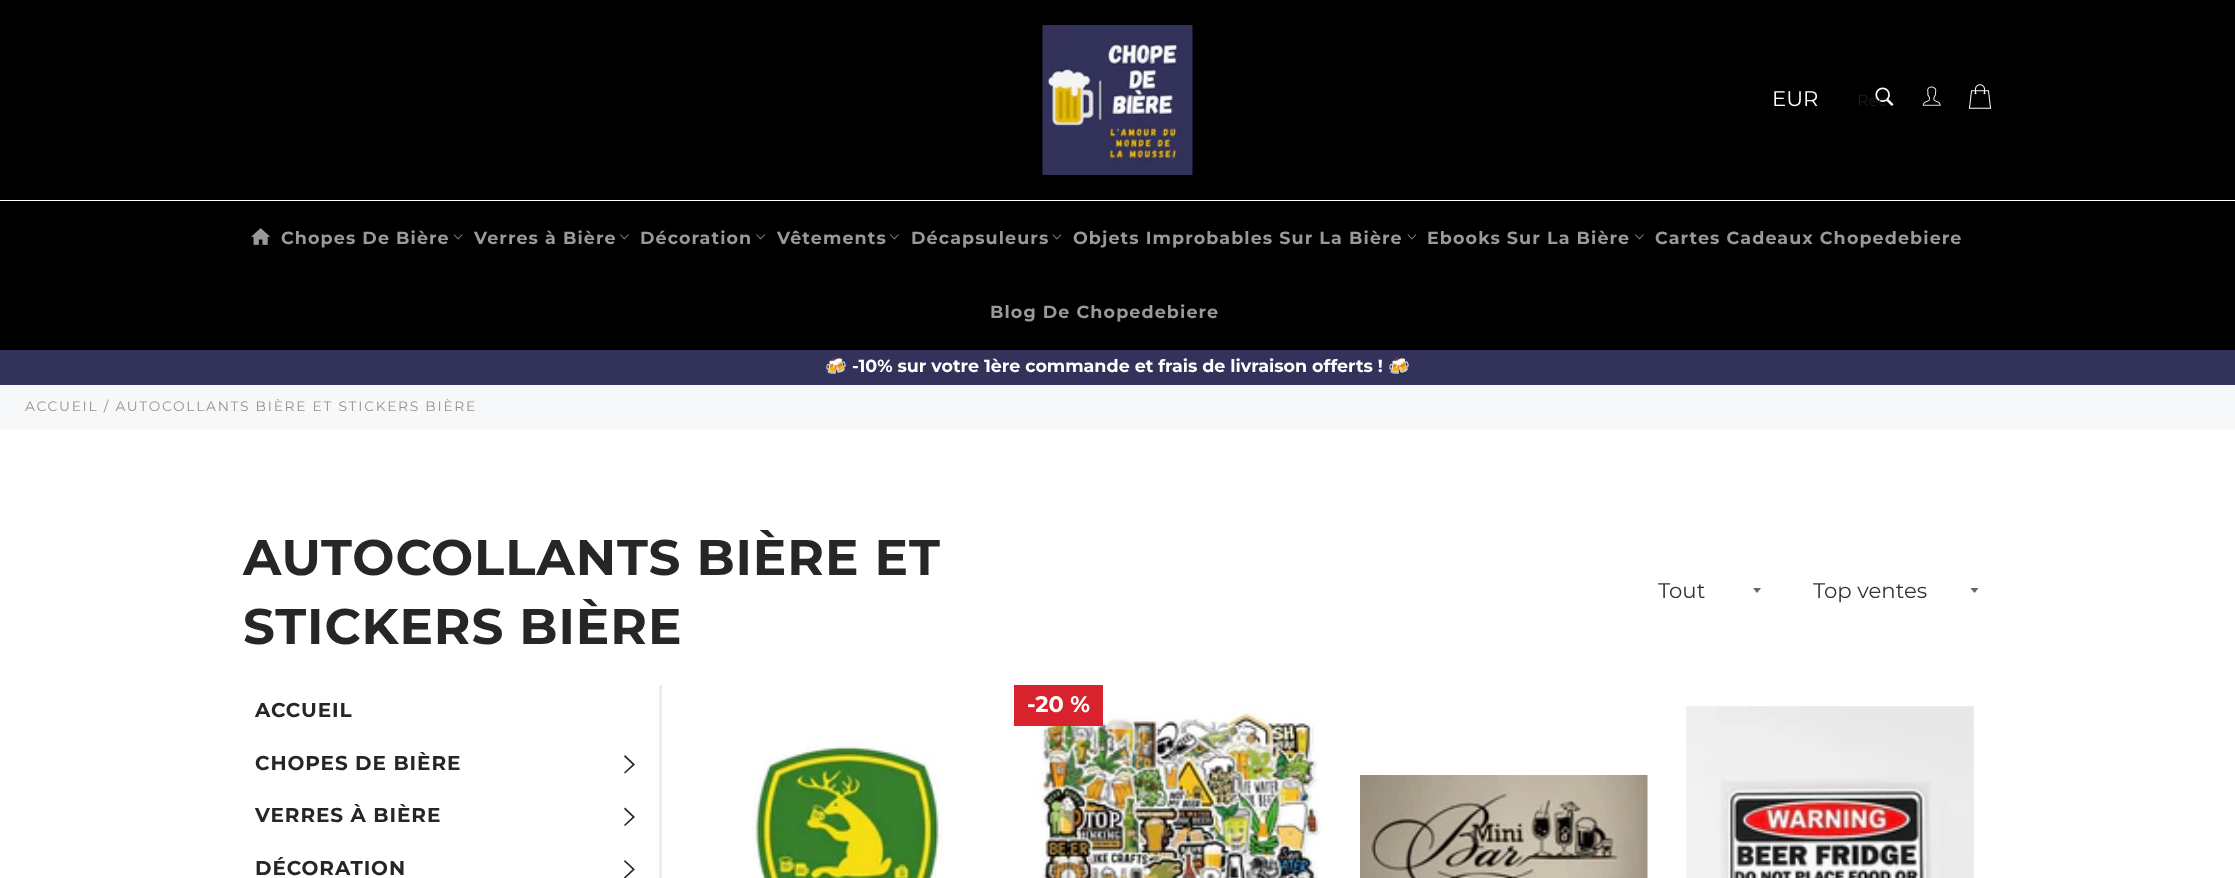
(async () => {
const canvas = document.querySelector("canvas")
canvas.width = 2235
canvas.height = 878
const c = canvas.getContext("2d")
c.miterLimit = 4
c.fontKerning = "normal"
function T(s,x,y){c.fillText(s,x,y)}
function R(x,y,w,h){c.fillRect(x,y,w,h)}
async function I(src,x,y,w,h){const img=new Image();img.src=src;await img.decode();c.drawImage(img,x,y,w,h)}
let path
c.fillStyle="#000"
R(0,0,2235,878)
await I("1.png",1042,25,151,150)
c.font="21.25px Montserrat"
c.fillStyle="#fff"
T("EUR",1772,106)
await I("2.png",1875,87,19,19)
c.font="16px Montserrat"
c.fillStyle="#1c1c1c"
T("Rec",1857,106)
await I("3.png",1922,86,19,20)
await I("4.png",1969,84,22,25)
c.fillStyle="#fff"
R(0,200,2235,1)
await I("5.png",251,228,20,17)
c.letterSpacing="1.1px"
c.font="bold 17.5px Montserrat"
c.fillStyle="#999"
T("Chopes De Bière",281,244)
await I("6.png",453,234,10,6)
T("Verres à Bière",474,244)
await I("7.png",620,234,9,6)
T("Décoration",640,244)
await I("8.png",756,234,9,6)
T("Vêtements",777,244)
await I("7.png",890,234,9,6)
T("Décapsuleurs",911,244)
await I("9.png",1052,234,10,6)
T("Objets Improbables Sur La Bière",1073,244)
await I("9.png",1407,234,10,6)
T("Ebooks Sur La Bière",1427,244)
await I("7.png",1635,234,9,6)
T("Cartes Cadeaux Chopedebiere",1655,244)
T("Blog De Chopedebiere",990,318)
c.fillStyle="#32325b"
R(0,350,2235,35)
c.letterSpacing="0px"
c.font="bold 17.5px Noto Color Emoji"
c.fillStyle="#fff"
T("🍻",825,372)
c.font="bold 17.5px Montserrat"
T("-10% sur votre 1ère commande et frais de livraison offerts !",852,372)
c.font="bold 17.5px Noto Color Emoji"
T("🍻",1388,372)
R(0,429,2235,449)
c.fillStyle="#f7f8f9"
R(0,385,2235,44)
c.letterSpacing="1.75px"
c.font="13.75px Montserrat"
c.fillStyle="#929292"
T("ACCUEIL / AUTOCOLLANTS BIÈRE ET STICKERS BIÈRE",25,411)
c.letterSpacing="0.9px"
c.font="bold 50px Montserrat"
c.fillStyle="#262626"
T("AUTOCOLLANTS BIÈRE ET",243,575)
T("STICKERS BIÈRE",243,644)
c.save()
c.beginPath()
c.rect(1753,588,10,6)
c.clip()
c.fillStyle="#666"
path = new Path2D("M1752.5 587.5l4.5 5.5l4.5-5.5z")
c.fill(path)
c.restore()
c.letterSpacing="0px"
c.font="21.25px Montserrat"
c.fillStyle="#333"
T("Tout",1658,598)
c.save()
c.beginPath()
c.rect(1970,588,10,6)
c.clip()
c.fillStyle="#666"
path = new Path2D("M1970 587.5l4.5 5.5l4.5-5.5z")
c.fill(path)
c.restore()
T("Top ventes",1813,598)
c.fillStyle="#ededed"
R(659,685,3,193)
c.letterSpacing="0.9px"
c.font="bold 20px Montserrat"
c.fillStyle="#262626"
T("ACCUEIL",255,717)
T("CHOPES DE BIÈRE",255,770)
path = new Path2D("M624 756.5l1-1.5l10 9.5l-10 9l-1-1l8.5-8z")
c.fill(path)
T("VERRES À BIÈRE",255,822)
path = new Path2D("M624 809l1-1.5l10 9.5l-10 9l-1-1l8.5-8z")
c.fill(path)
T("DÉCORATION",255,875)
await I("10.png",623,860,12,18)
await I("11.png",752,739,191,139)
await I("12.png",1032,706,289,172)
c.fillStyle="#d8232f"
R(1014,685,89,41)
c.letterSpacing="0px"
c.font="bold 22.5px Montserrat"
c.fillStyle="#fff"
T("-20 %",1027,712)
await I("13.png",1360,775,288,103)
await I("14.png",1686,706,288,172)
})()
